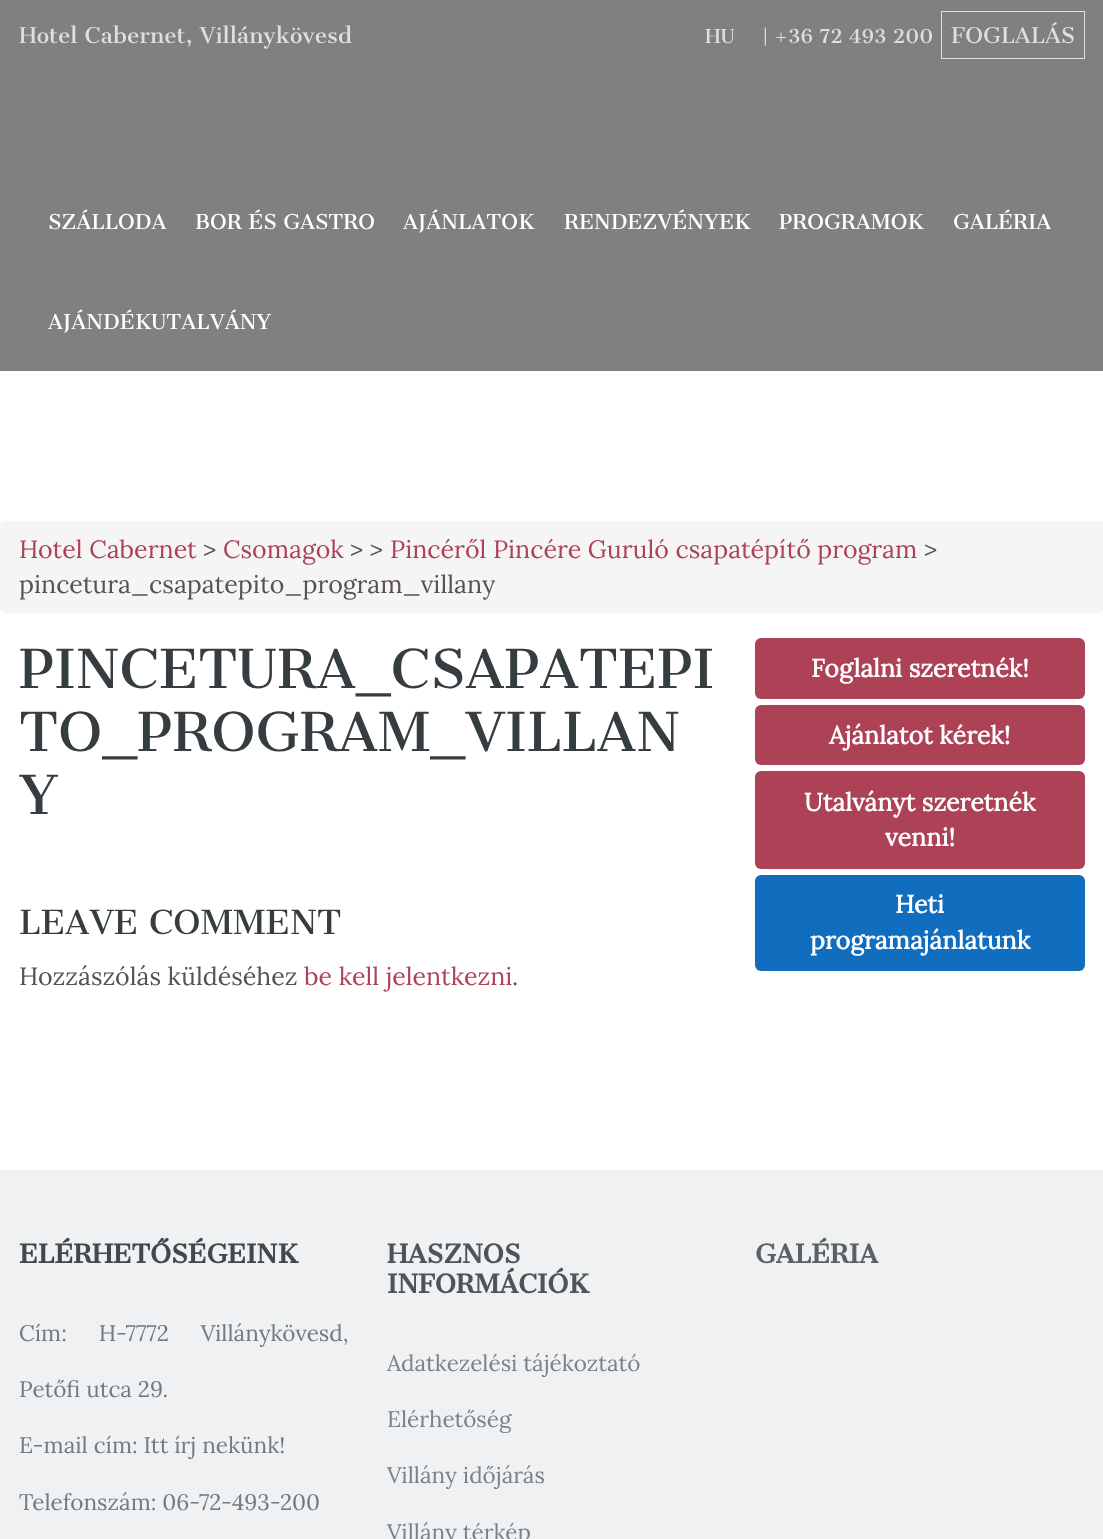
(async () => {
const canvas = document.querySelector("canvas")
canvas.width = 1103
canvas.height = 1539
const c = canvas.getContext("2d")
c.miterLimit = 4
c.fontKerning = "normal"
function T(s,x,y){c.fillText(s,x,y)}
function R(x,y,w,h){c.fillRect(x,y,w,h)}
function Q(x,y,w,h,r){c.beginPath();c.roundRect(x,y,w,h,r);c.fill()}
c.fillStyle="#fff"
R(0,0,1103,1539)
c.fillStyle="#808080"
R(0,0,1103,371)
c.font="21.25px Cantata One"
c.fillStyle="#dfdfdf"
T("Hotel Cabernet, Villánykövesd",19,43)
c.font="18.75px Cantata One"
T("HU",705,43)
T("|",763,43)
T("+36 72 493 200",774,43)
c.strokeStyle="#dfdfdf"
c.strokeRect(941.5,11.5,143,47)
c.font="21.25px Cantata One"
T("FOGLALÁS",951,43)
c.font="20px Cantata One"
c.fillStyle="#fff"
T("SZÁLLODA",48,229)
T("BOR ÉS GASTRO",195,229)
T("AJÁNLATOK",403,229)
T("RENDEZVÉNYEK",564,229)
T("PROGRAMOK",779,229)
T("GALÉRIA",953,229)
T("AJÁNDÉKUTALVÁNY",48,329)
c.fillStyle="#f5f5f5"
Q(0,521,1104,92,5)
c.font="25px Lora"
c.fillStyle="#ad4256"
T("Hotel Cabernet",19,558)
c.fillStyle="#595050"
T(">",203,558)
c.fillStyle="#ad4256"
T("Csomagok",223,558)
c.fillStyle="#595050"
T("> >",350,558)
c.fillStyle="#ad4256"
T("Pincéről Pincére Guruló csapatépítő program",390,558)
c.fillStyle="#595050"
T(">",924,558)
T("pincetura_csapatepito_program_villany",19,593)
c.font="52.5px Cantata One"
c.fillStyle="#363d40"
T("PINCETURA_CSAPATEPI",19,688)
T("TO_PROGRAM_VILLAN",19,751)
T("Y",19,814)
c.font="32.5px Cantata One"
T("LEAVE COMMENT",19,934)
c.font="25px Lora"
c.fillStyle="#595050"
T("Hozzászólás küldéséhez",19,985)
c.fillStyle="#ad4256"
T("be kell jelentkezni",304,985)
c.fillStyle="#595050"
T(".",512,985)
c.fillStyle="#ad4256"
Q(755,638,330,61,6)
c.font="bold 25px Lora"
c.fillStyle="#fff"
T("Foglalni szeretnék!",811,677)
c.fillStyle="#ad4256"
Q(755,705,330,60,6)
c.fillStyle="#fff"
T("Ajánlatot kérek!",829,744)
c.fillStyle="#ad4256"
Q(755,771,330,98,6)
c.fillStyle="#fff"
T("Utalványt szeretnék",804,811)
T("venni!",885,846)
c.fillStyle="#116ebf"
Q(755,875,330,96,6)
c.fillStyle="#fff"
T("Heti",895,913)
T("programajánlatunk",810,949)
c.fillStyle="#f0f1f2"
R(0,1170,1103,369)
c.font="bold 25px Cantata One"
c.fillStyle="#42484b"
T("ELÉRHETŐSÉGEINK",19,1263)
c.wordSpacing="26px"
c.font="22.5px Lora"
c.fillStyle="#6f7a81"
T("Cím: H-7772 Villánykövesd,",19,1341)
c.wordSpacing="0px"
T("Petőfi utca 29.",19,1397)
T("E-mail cím: Itt írj nekünk!",19,1453)
T("Telefonszám: 06-72-493-200",19,1510)
c.font="bold 25px Cantata One"
c.fillStyle="#4e5457"
T("HASZNOS",387,1263)
T("INFORMÁCIÓK",387,1293)
c.font="22.5px Lora"
c.fillStyle="#788288"
T("Adatkezelési tájékoztató",387,1371)
T("Elérhetőség",387,1427)
T("Villány időjárás",387,1483)
T("Villány térkép",387,1540)
c.font="bold 25px Cantata One"
c.fillStyle="#5c6264"
T("GALÉRIA",755,1263)
})()
